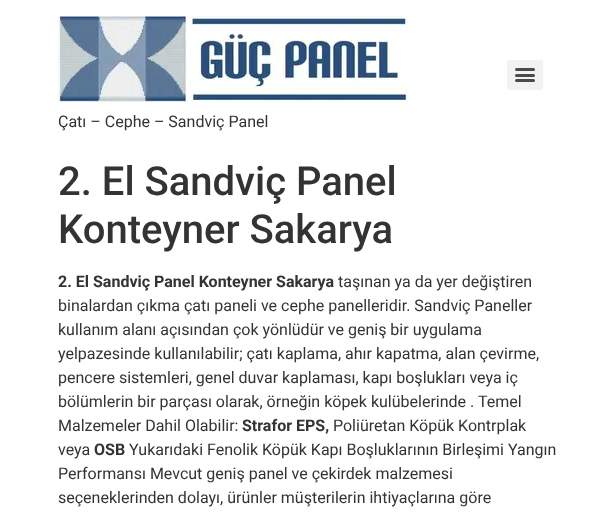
(async () => {
const canvas = document.querySelector("canvas")
canvas.width = 615
canvas.height = 514
const c = canvas.getContext("2d")
c.miterLimit = 4
c.fontKerning = "normal"
function T(s,x,y){c.fillText(s,x,y)}
function R(x,y,w,h){c.fillRect(x,y,w,h)}
function Q(x,y,w,h,r){c.beginPath();c.roundRect(x,y,w,h,r);c.fill()}
async function I(src,x,y,w,h){const img=new Image();img.src=src;await img.decode();c.drawImage(img,x,y,w,h)}
c.fillStyle="#fff"
R(0,0,615,514)
c.fillStyle="#f2f2f2"
Q(507,60,36,30,3)
c.fillStyle="#494c4f"
Q(515,74,20,3,1.5)
Q(515,68,20,3,1.5)
Q(515,79,20,3,1.5)
await I("1.png",58,16,350,86)
c.font="16px Roboto"
c.fillStyle="#333"
T("Çatı – Cephe – Sandviç Panel",58,127)
c.font="500 40px Roboto"
T("2. El Sandviç Panel",58,195)
T("Konteyner Sakarya",58,243)
c.font="bold 16px Roboto"
T("2. El Sandviç Panel Konteyner Sakarya",58,287)
c.font="16px Roboto"
T("taşınan ya da yer değiştiren",338,287)
T("binalardan çıkma çatı paneli ve cephe panelleridir. Sandviç Paneller",58,311)
T("kullanım alanı açısından çok yönlüdür ve geniş bir uygulama",58,335)
T("yelpazesinde kullanılabilir; çatı kaplama, ahır kapatma, alan çevirme,",58,359)
T("pencere sistemleri, genel duvar kaplaması, kapı boşlukları veya iç",58,383)
T("bölümlerin bir parçası olarak, örneğin köpek kulübelerinde . Temel",58,407)
T("Malzemeler Dahil Olabilir:",58,431)
c.font="bold 16px Roboto"
T("Strafor EPS,",242,431)
c.font="16px Roboto"
T("Poliüretan Köpük Kontrplak",333,431)
T("veya",58,455)
c.font="bold 16px Roboto"
T("OSB",94,455)
c.font="16px Roboto"
T("Yukarıdaki Fenolik Köpük Kapı Boşluklarının Birleşimi Yangın",129,455)
T("Performansı Mevcut geniş panel ve çekirdek malzemesi",58,479)
T("seçeneklerinden dolayı, ürünler müşterilerin ihtiyaçlarına göre",58,503)
})()
